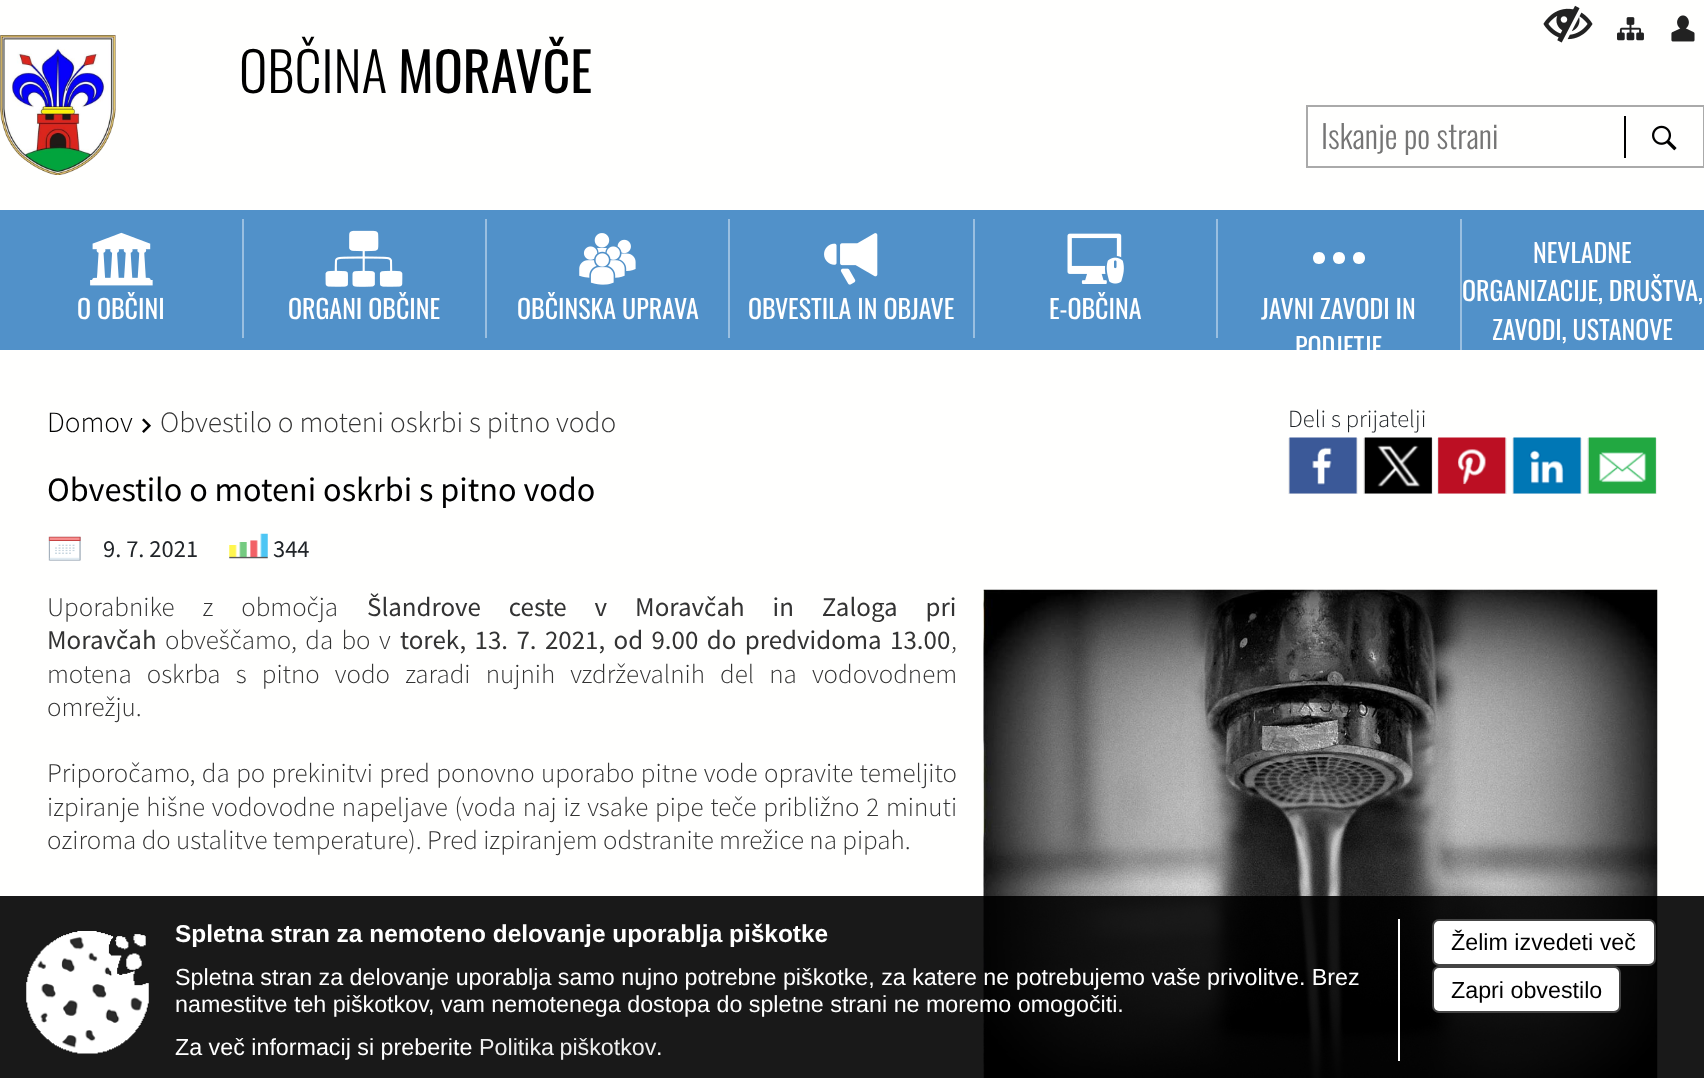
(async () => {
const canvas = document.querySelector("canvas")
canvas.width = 1704
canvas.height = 1078
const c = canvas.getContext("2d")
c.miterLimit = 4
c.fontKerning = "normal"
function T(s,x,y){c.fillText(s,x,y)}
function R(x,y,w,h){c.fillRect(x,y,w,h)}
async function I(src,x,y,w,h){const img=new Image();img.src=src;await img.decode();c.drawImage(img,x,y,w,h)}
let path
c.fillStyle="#fffffe"
R(0,0,1704,1078)
await I("1.png",1543,5,50,38)
await I("2.png",1617,17,27,24)
await I("3.png",1671,15,24,27)
await I("4.png",0,35,116,140)
c.font="300 54px Oswald"
c.fillStyle="#000"
T("OBČINA",239,93)
c.font="54px Oswald"
T("MORAVČE",398,93)
c.strokeStyle="#aaa"
c.lineWidth=2
c.strokeRect(1307,106,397,61)
c.font="300 32px Oswald"
c.fillStyle="#757575"
T("Iskanje po strani",1321,149)
c.fillStyle="#000"
R(1624,116,2,42)
await I("5.png",1652,125,25,26)
c.fillStyle="#5191c9"
R(0,210,1704,140)
c.fillStyle="#9abfe0"
R(1460,219,2,131)
R(242,219,2,119)
await I("6.png",90,232,63,54)
c.font="26px Oswald"
c.fillStyle="#fff"
T("O OBČINI",77,319)
c.fillStyle="#9abfe0"
R(485,219,2,119)
await I("7.png",325,230,78,57)
c.fillStyle="#fff"
T("ORGANI OBČINE",288,319)
c.fillStyle="#9abfe0"
R(728,219,2,119)
await I("8.png",579,233,57,52)
c.fillStyle="#fff"
T("OBČINSKA UPRAVA",517,319)
c.fillStyle="#9abfe0"
R(973,219,2,119)
await I("9.png",824,233,54,52)
c.fillStyle="#fff"
T("OBVESTILA IN OBJAVE",748,319)
c.fillStyle="#9abfe0"
R(1216,219,2,119)
await I("10.png",1067,233,57,51)
c.fillStyle="#fff"
T("E-OBČINA",1049,319)
path = new Path2D("M1339 252c-8 0-8 12 0 12c8 0 8-12 0-12zm-20 0c-8 0-8 12 0 12c8 0 8-12 0-12zm40 0c-8 0-8 12 0 12c8 0 8-12 0-12z")
c.fill(path)
T("JAVNI ZAVODI IN",1261,319)
T("PODJETJE",1295,357)
T("NEVLADNE",1533,263)
T("ORGANIZACIJE, DRUŠTVA,",1462,301)
T("ZAVODI, USTANOVE",1492,340)
c.font="300 29.4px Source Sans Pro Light"
c.fillStyle="#000"
T("Domov",47,432)
await I("11.png",142,418,9,15)
c.fillStyle="#333"
T("Obvestilo o moteni oskrbi s pitno vodo",160,432)
c.font="300 24.5px Source Sans Pro Light"
c.fillStyle="#212529"
T("Deli s prijatelji",1288,427)
c.fillStyle="#efefef"
R(1288,438,70,56)
await I("12.png",1289,437,68,57)
R(1363,438,70,56)
await I("13.png",1364,437,68,57)
R(1437,438,70,56)
await I("14.png",1438,437,68,57)
R(1512,438,70,56)
await I("15.png",1513,437,68,57)
R(1587,438,70,56)
await I("16.png",1588,437,68,57)
c.font="34.25px Source Sans Pro"
c.fillStyle="#000"
T("Obvestilo o moteni oskrbi s pitno vodo",47,501)
await I("17.png",48,536,33,25)
c.font="24.5px Source Sans Pro"
c.fillStyle="#212529"
T("9. 7. 2021",103,557)
await I("18.png",229,533,39,26)
T("344",273,557)
c.wordSpacing="22.5px"
c.font="300 26.95px Source Sans Pro Light"
c.fillStyle="#333"
T("Uporabnike z območja",47,616)
c.font="26.95px Source Sans Pro"
T("Šlandrove ceste v Moravčah in Zaloga pri",367,616)
c.wordSpacing="0px"
T("Moravčah",47,649)
c.wordSpacing="3px"
c.font="300 26.95px Source Sans Pro Light"
T("obveščamo, da bo v",165,649)
c.font="26.95px Source Sans Pro"
T("torek, 13. 7. 2021, od 9.00 do predvidoma 13.00",400,649)
c.wordSpacing="0px"
c.font="300 26.95px Source Sans Pro Light"
T(",",951,649)
c.wordSpacing="9.75px"
T("motena oskrba s pitno vodo zaradi nujnih vzdrževalnih del na vodovodnem",47,683)
c.wordSpacing="0px"
T("omrežju.",47,716)
c.wordSpacing="1px"
T("Priporočamo, da po prekinitvi pred ponovno uporabo pitne vode opravite temeljito",47,782)
c.wordSpacing="1.4px"
T("izpiranje hišne vodovodne napeljave (voda naj iz vsake pipe teče približno 2 minuti",47,816)
c.wordSpacing="0px"
T("oziroma do ustalitve temperature). Pred izpiranjem odstranite mrežice na pipah.",47,849)
await I("19.png",983,589,675,489)
c.fillStyle="#000000e6"
R(0,896,1704,182)
await I("20.png",26,931,123,123)
c.fillStyle="#fff"
R(1398,919,2,142)
c.font="bold 24.45px Liberation Sans"
T("Spletna stran za nemoteno delovanje uporablja piškotke",175,942)
c.font="23.28px Liberation Sans"
T("Spletna stran za delovanje uporablja samo nujno potrebne piškotke, za katere ne potrebujemo vaše privolitve. Brez",175,985)
T("namestitve teh piškotkov, vam nemotenega dostopa do spletne strani ne moremo omogočiti.",175,1012)
T("Za več informacij si preberite",175,1055)
c.wordSpacing="-1px"
c.fillStyle="#eee"
T("Politika piškotkov",479,1055)
c.wordSpacing="0px"
c.fillStyle="#fff"
T(".",656,1055)
c.beginPath()
c.roundRect(1433,920,222,45,6)
c.fill()
c.strokeStyle="#444"
c.stroke()
c.fillStyle="#000"
T("Želim izvedeti več",1451,950)
c.fillStyle="#fff"
c.beginPath()
c.roundRect(1433,967,187,45,6)
c.fill()
c.stroke()
c.fillStyle="#000"
T("Zapri obvestilo",1451,998)
})()
